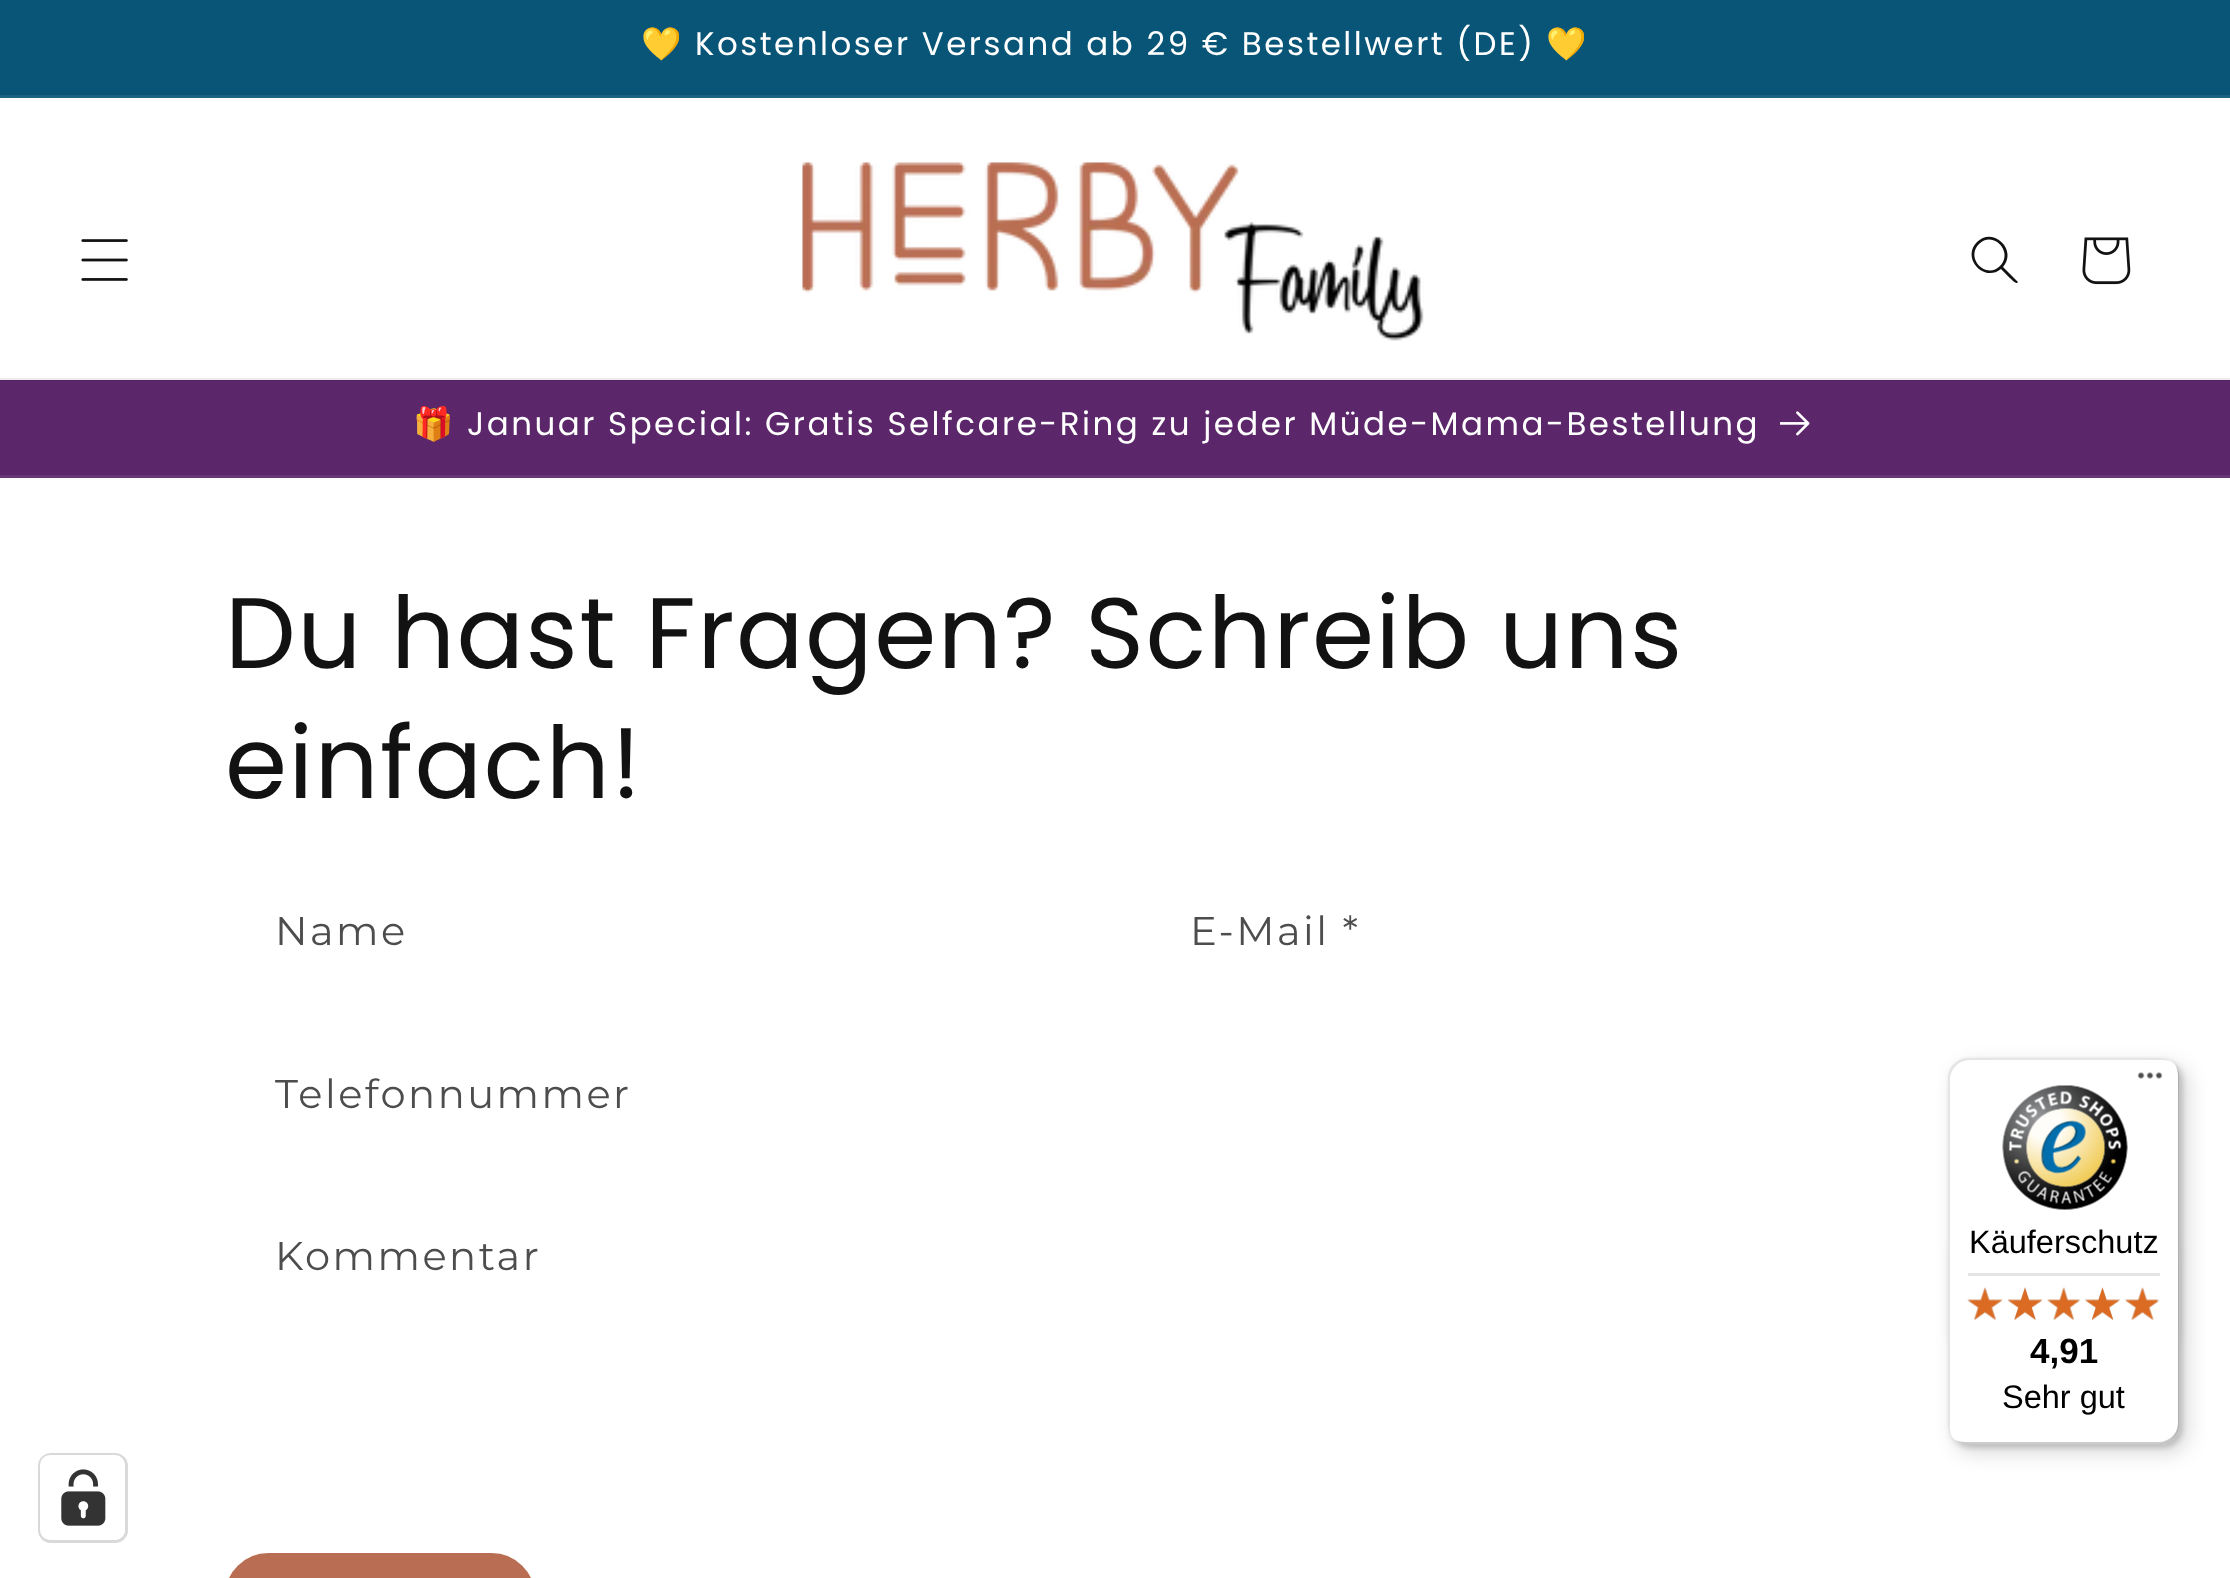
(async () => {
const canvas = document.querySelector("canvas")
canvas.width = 2230
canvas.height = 1578
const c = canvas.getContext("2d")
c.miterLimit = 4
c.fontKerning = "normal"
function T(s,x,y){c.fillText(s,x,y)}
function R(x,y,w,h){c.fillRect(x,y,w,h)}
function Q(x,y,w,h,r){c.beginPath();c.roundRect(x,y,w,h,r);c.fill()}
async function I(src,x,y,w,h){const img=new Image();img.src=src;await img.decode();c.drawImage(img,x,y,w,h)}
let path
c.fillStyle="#fff"
R(0,0,2230,1578)
c.fillStyle="#ececec"
R(0,378,2230,2)
c.fillStyle="#095577"
R(0,0,2230,95)
c.fillStyle="#1d6382"
R(0,95,2230,3)
c.letterSpacing="2.5px"
c.font="32.5px Noto Color Emoji"
c.fillStyle="#fff"
T("💛",641,55)
c.font="32.5px Poppins"
T("Kostenloser Versand ab 29 € Bestellwert (DE)",695,55)
c.font="32.5px Noto Color Emoji"
T("💛",1546,55)
await I("1.png",81,239,47,42)
await I("2.png",802,162,622,179)
c.fillStyle="#121212"
path = new Path2D("M2000 266c-14 14-35-8-21-22c14-14 35 8 21 22zm1 3c-17 14-40-11-24-27c16-16 41 8 26 25l15 15l-1 1c-2 1-14-12-16-14z")
c.fill(path,"evenodd")
await I("3.png",2082,237,49,48)
c.fillStyle="#5b266a"
R(0,381,2230,94)
c.fillStyle="#552463"
R(0,380,2230,1)
c.fillStyle="#683776"
R(0,475,2230,3)
c.fillStyle="#fff"
T("🎁",413,435)
c.font="32.5px Poppins"
T("Januar Special: Gratis Selfcare-Ring zu jeder Müde-Mama-Bestellung",467,435)
await I("4.png",1780,411,30,25)
c.letterSpacing="1.5px"
c.font="100px Poppins"
c.fillStyle="#121212"
T("Du hast Fragen? Schreib uns",225,668)
T("einfach!",225,798)
c.letterSpacing="2.5px"
c.font="40px Montserrat"
c.fillStyle="#4d4d4d"
T("Name",275,945)
T("E-Mail *",1190,945)
T("Telefonnummer",275,1108)
T("Kommentar",275,1270)
c.fillStyle="#b96e53"
c.beginPath()
c.roundRect(226.5,1554.5,307,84,57)
c.fill()
c.strokeStyle="#b96e53"
c.lineWidth=3
c.stroke()
c.fillStyle="#00000026"
c.filter="blur(6px)"
c.beginPath()
c.roundRect(1953,1218,222,150,40)
c.fill()
c.filter="none"
c.filter="blur(10px)"
c.beginPath()
c.roundRect(1955,1065,233,388,20)
c.fill()
c.filter="none"
c.filter="blur(2.5px)"
c.beginPath()
c.roundRect(1950,1060,233,388,20)
c.fill()
c.filter="none"
c.fillStyle="#fff"
Q(1948,1058,232,387,20)
c.fillStyle="#e5e5e5"
path = new Path2D("M1970 1060h192c5 0 9 1 12 4c-4-4-9-6-14-6h-192c-11 0-20 9-20 20v347c0 5 2 9 4 13c-1-3-2-7-2-10v-348c0-11 9-20 20-20z")
c.fill(path)
c.fillStyle="#00000033"
path = new Path2D("M1953 1438c4 4 9 7 15 7h192c11 0 20-9 20-20v-347c0-5-2-9-4-13c1 3 2 7 2 10v347c0 12-9 20-20 20h-193c-4 0-9-1-12-4z")
c.fill(path)
c.fillStyle="#32323233"
path = new Path2D("M1958 1442c3 2 6 3 10 3h192c11 0 20-9 20-20v-347c0-5-2-10-6-14c3 3 4 7 4 12v348c0 11-8 20-20 20h-192c-3 0-6-1-8-2z")
c.fill(path)
c.fillStyle="#ffffff4d"
path = new Path2D("M1958 1442c3 2 6 3 10 3h192c11 0 20-9 20-20v-347c0-4-1-7-3-10c1 2 2 5 2 8v348c0 11-9 20-20 20h-193c-3 0-6-1-8-2z")
c.fill(path)
await I("5.png",2137,1072,26,7)
await I("6.png",2002,1085,126,125)
c.letterSpacing="0px"
c.font="32.5px Liberation Sans"
c.fillStyle="#000"
T("Käuferschutz",1969,1253)
c.fillStyle="#e5e5e5"
R(1968,1273,192,3)
await I("12.png",1968,1288,34,32)
await I("7.png",1967,1287,36,33)
await I("13.png",2008,1287,34,33)
await I("8.png",2008,1287,34,33)
await I("14.png",2047,1287,33,33)
await I("9.png",2047,1287,33,33)
await I("15.png",2085,1287,35,33)
await I("10.png",2085,1287,35,33)
await I("16.png",2125,1288,35,32)
await I("11.png",2125,1287,33,33)
c.font="bold 35px Liberation Sans"
c.fillStyle="#000"
T("4,91",2030,1363)
c.font="32.5px Liberation Sans"
T("Sehr gut",2002,1408)
c.beginPath()
c.roundRect(39.5,1454.5,87,87,11.5)
c.strokeStyle="#d9d9d9"
c.stroke()
c.fillStyle="#fff"
Q(40,1455,85,85,10)
await I("17.png",61,1469,45,57)
})()
